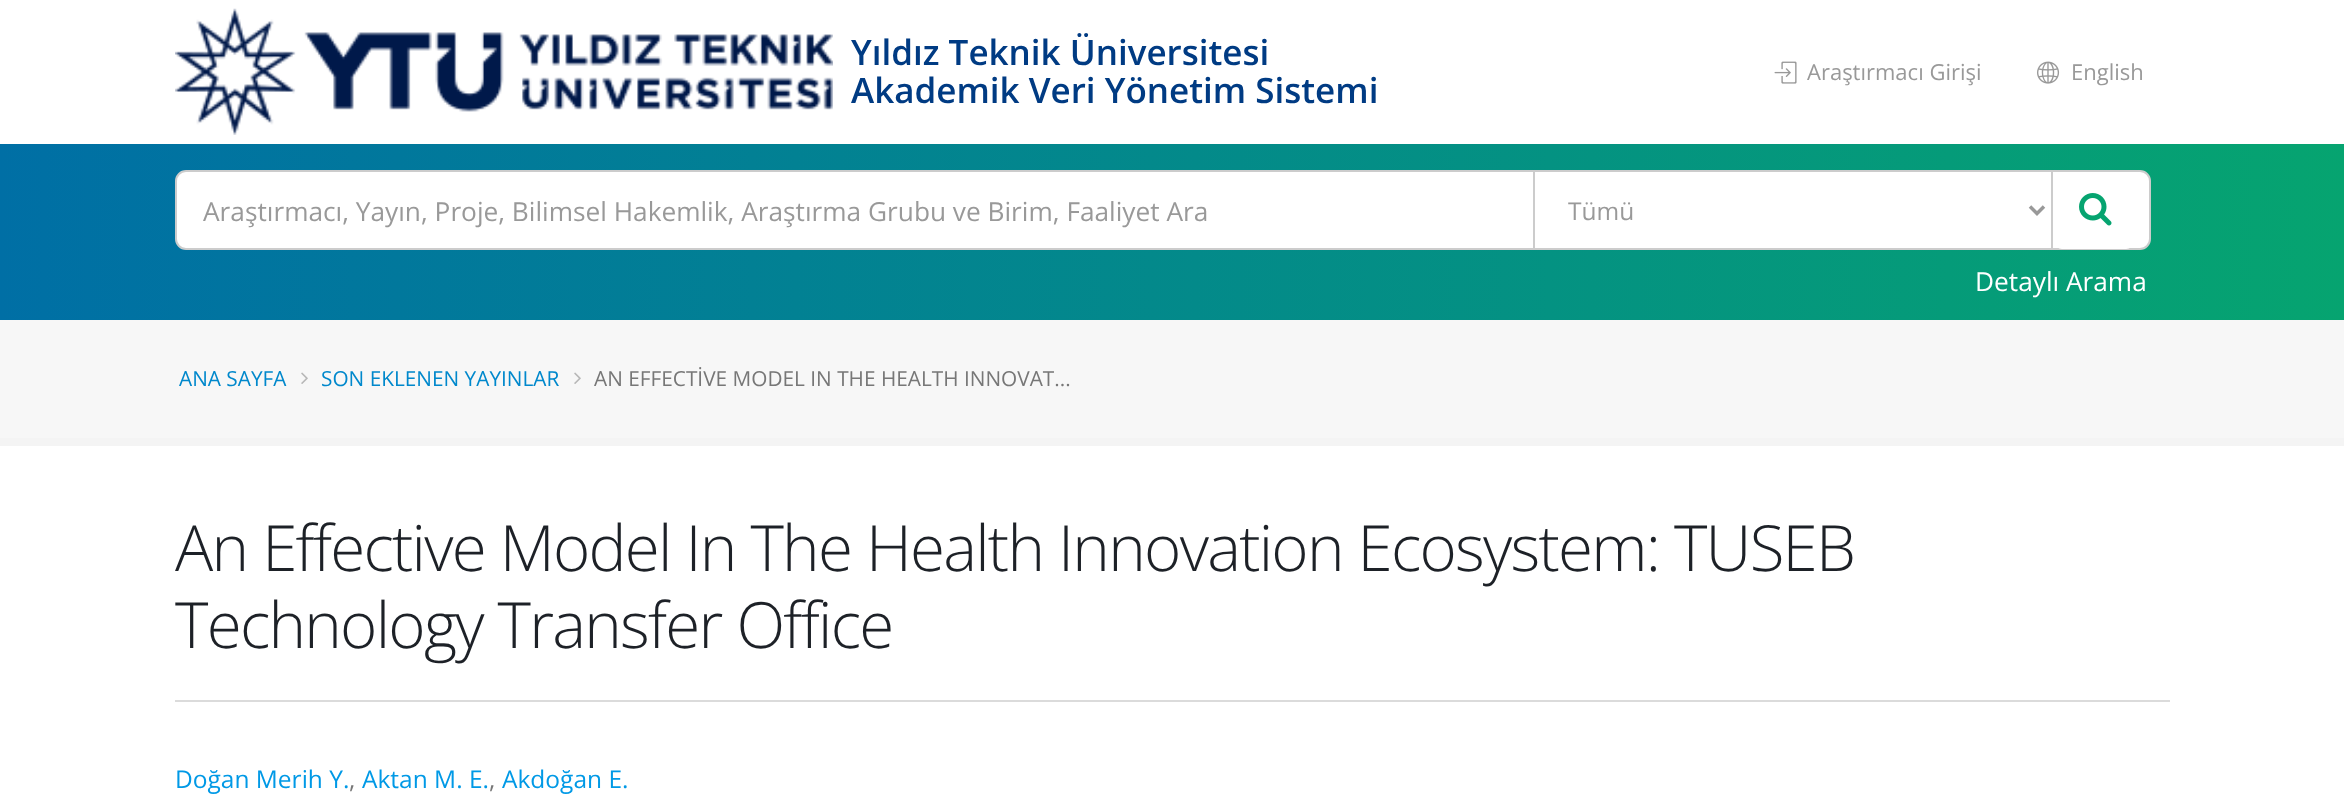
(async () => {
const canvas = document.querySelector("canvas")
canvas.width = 2344
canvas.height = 799
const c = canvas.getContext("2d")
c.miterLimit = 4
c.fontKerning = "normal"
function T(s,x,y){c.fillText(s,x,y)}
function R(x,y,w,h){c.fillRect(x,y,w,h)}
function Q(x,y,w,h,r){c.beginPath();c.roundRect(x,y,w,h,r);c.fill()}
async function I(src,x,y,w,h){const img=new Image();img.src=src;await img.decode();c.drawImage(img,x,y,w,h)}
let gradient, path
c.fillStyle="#fff"
R(0,0,2344,799)
await I("1.png",175,8,658,127)
c.font="600 35px Open Sans"
c.fillStyle="#003b83"
T("Yıldız Teknik Üniversitesi",851,65)
T("Akademik Veri Yönetim Sistemi",851,103)
await I("2.png",1774,61,23,23)
c.font="22px Open Sans"
c.fillStyle="#999"
T("Araştırmacı Girişi",1807,80)
await I("3.png",2037,61,23,23)
T("English",2071,80)
gradient = c.createLinearGradient(0,232,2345,232)
gradient.addColorStop(0,"#006fa5")
gradient.addColorStop(1,"#06a470")
c.fillStyle = gradient
R(0,144,2344,176)
c.fillStyle="#fff"
c.beginPath()
c.roundRect(176,171,1974,78,10)
c.fill()
c.strokeStyle="#ccc"
c.lineWidth=2
c.stroke()
c.font="26.25px Open Sans"
c.fillStyle="#999"
T("Araştırmacı, Yayın, Proje, Bilimsel Hakemlik, Araştırma Grubu ve Birim, Faaliyet Ara",203,221)
c.strokeRect(1534,171,518,78)
path = new Path2D("M2030 206.5l7 7l7-7")
c.strokeStyle="#999"
c.lineWidth=3.5
c.stroke(path)
c.font="24.5px Open Sans"
T("Tümü",1568,220)
c.fillStyle="#fff"
Q(2055,172,78,77,7)
await I("4.png",2079,193,33,33)
c.font="26.25px Open Sans"
T("Detaylı Arama",1975,291)
c.fillStyle="#f7f7f7"
R(0,320,2344,118)
c.fillStyle="#f4f4f4"
R(0,438,2344,8)
c.font="20.8px Open Sans"
c.fillStyle="#08c"
T("ANA SAYFA",179,386)
await I("5.png",301,372,7,12)
T("SON EKLENEN YAYINLAR",321,386)
await I("5.png",574,372,7,12)
c.fillStyle="#777"
T("AN EFFECTİVE MODEL IN THE HEALTH INNOVAT...",594,386)
c.letterSpacing="-1.75px"
c.font="300 63.7px Open Sans"
c.fillStyle="#1d2127"
T("An Effective Model In The Health Innovation Ecosystem: TUSEB",175,571)
T("Technology Transfer Office",175,648)
c.fillStyle="#dbdbdb"
R(175,700,1995,2)
c.letterSpacing="0px"
c.font="24.5px Open Sans"
c.fillStyle="#0099e6"
T("Doğan Merih Y.",175,788)
c.fillStyle="#777"
T(",",349,788)
c.fillStyle="#0099e6"
T("Aktan M. E.",362,788)
c.fillStyle="#777"
T(",",489,788)
c.fillStyle="#0099e6"
T("Akdoğan E.",502,788)
})()
